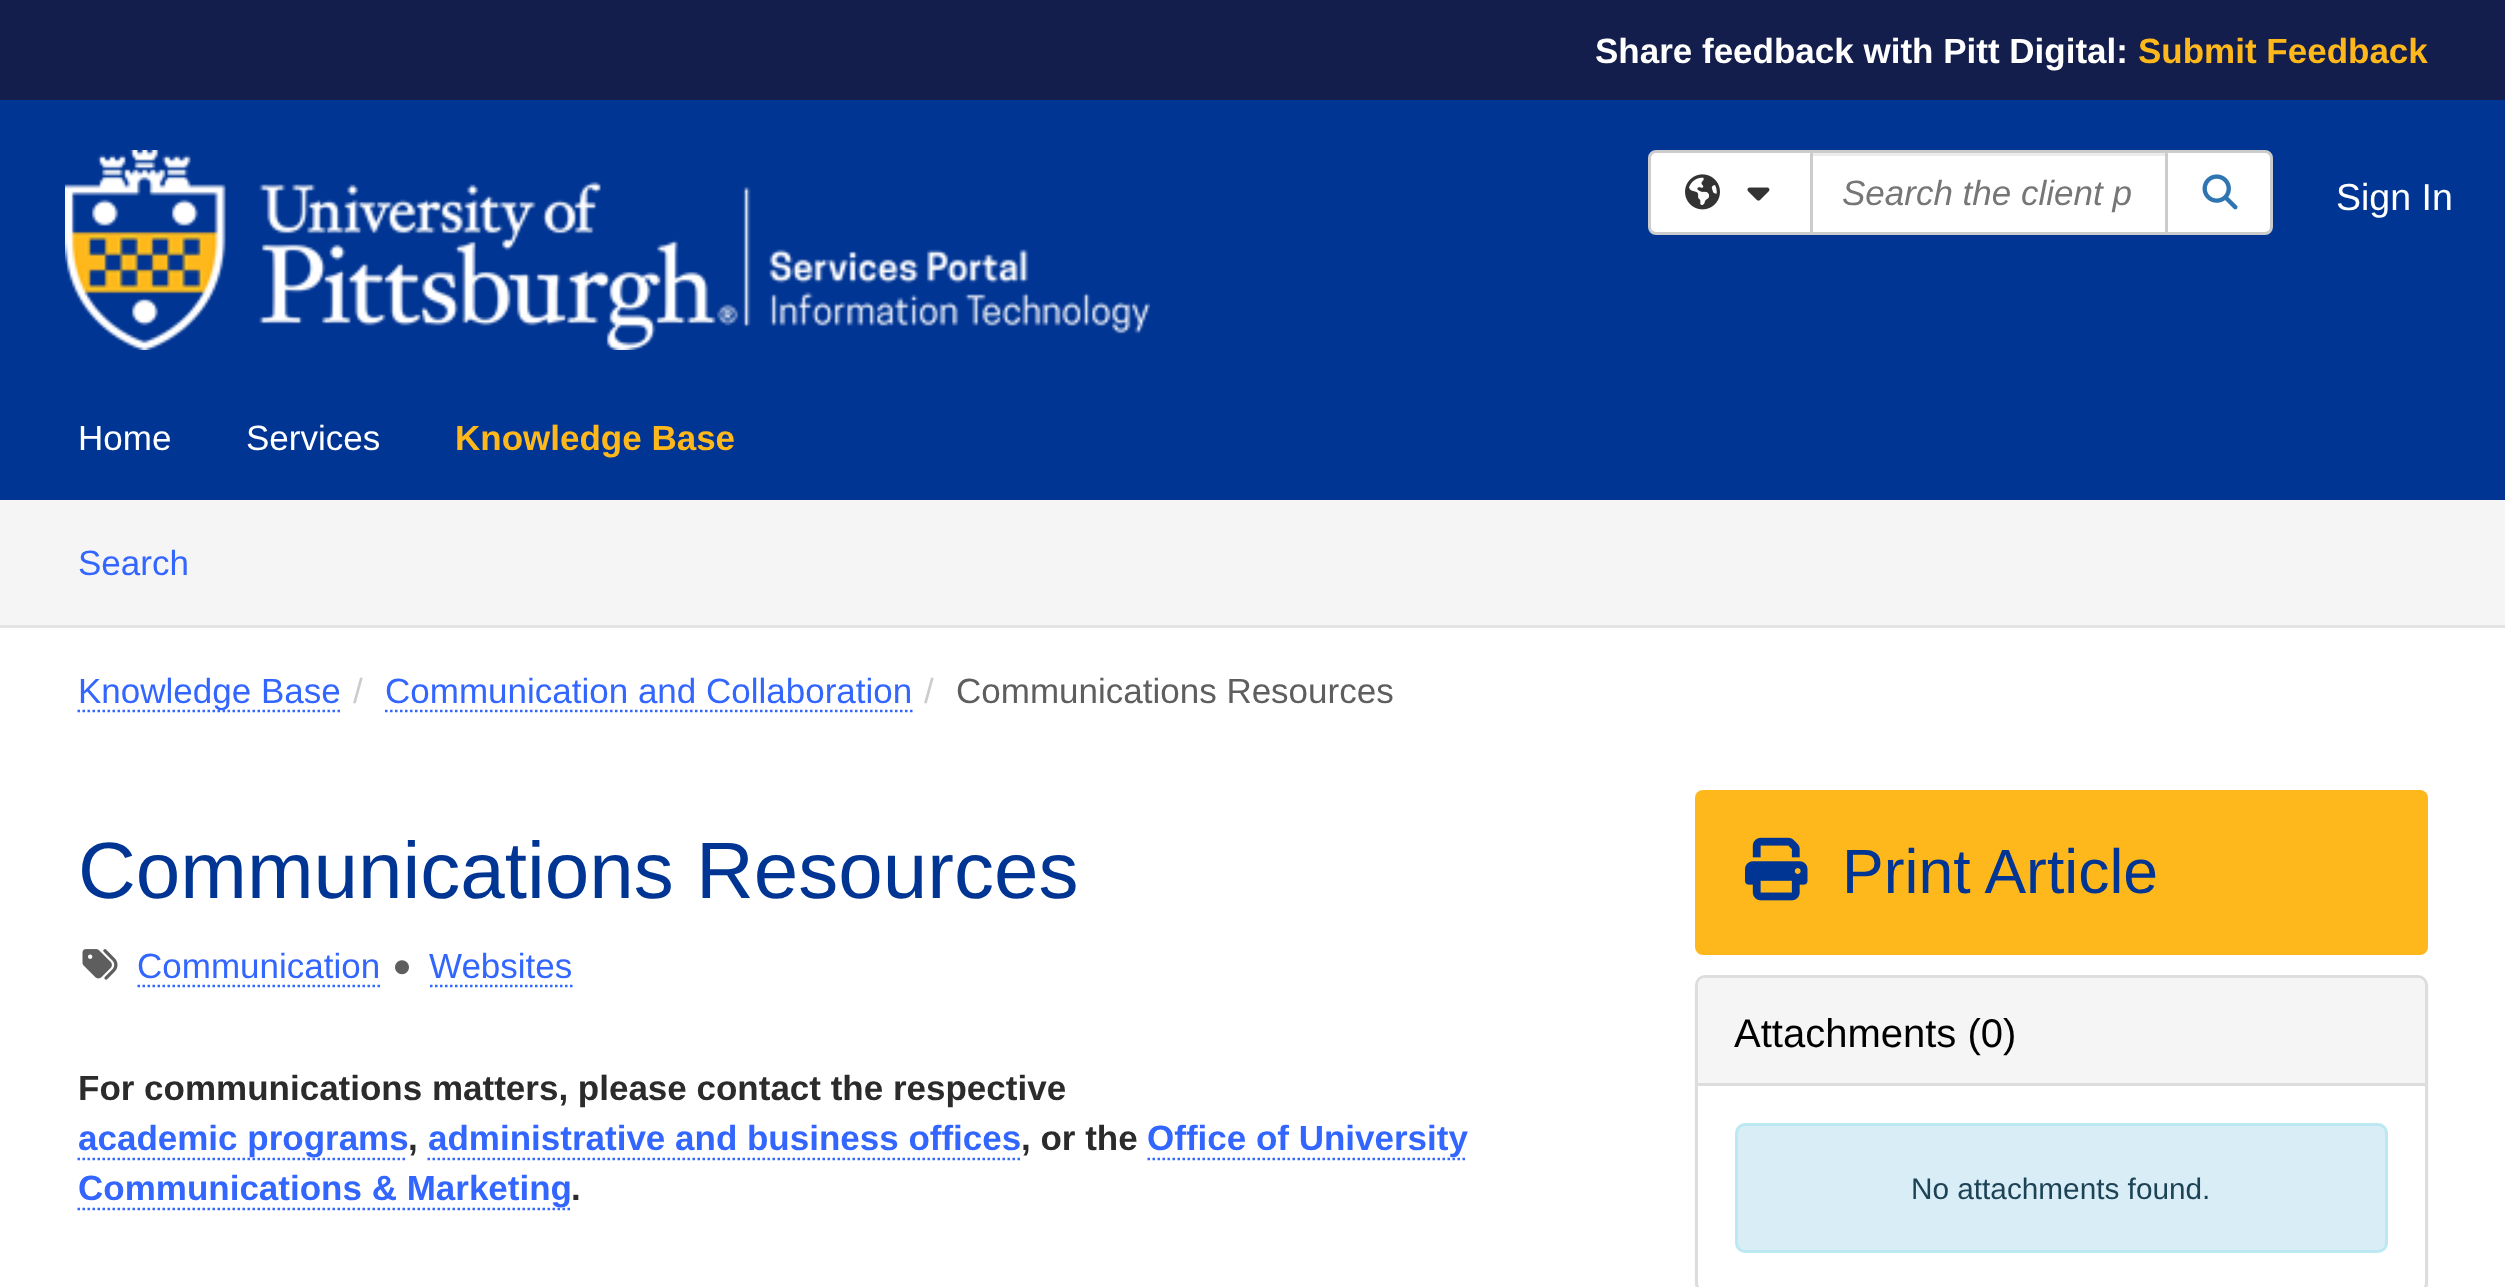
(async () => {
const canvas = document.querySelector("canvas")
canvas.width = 2505
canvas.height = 1287
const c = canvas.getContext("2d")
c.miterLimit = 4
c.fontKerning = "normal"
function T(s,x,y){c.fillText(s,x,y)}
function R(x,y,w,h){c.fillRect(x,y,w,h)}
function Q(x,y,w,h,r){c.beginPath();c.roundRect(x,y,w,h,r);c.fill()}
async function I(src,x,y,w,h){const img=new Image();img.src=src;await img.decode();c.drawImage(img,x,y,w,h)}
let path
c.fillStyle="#fff"
R(0,0,2505,1287)
c.fillStyle="#131e4c"
R(0,0,2505,100)
c.font="bold 35px Liberation Sans"
c.fillStyle="#fff"
T("Share feedback with Pitt Digital:",1595,63)
c.fillStyle="#ffb81c"
T("Submit Feedback",2138,63)
c.fillStyle="#003594"
R(0,100,2505,400)
await I("1.png",65,150,1085,200)
c.fillStyle="#fff"
c.beginPath()
c.roundRect(1649.5,151.5,162,82,[6.5,0,0,6.5])
c.fill()
c.strokeStyle="#ccc"
c.lineWidth=3
c.stroke()
await I("2.png",1685,174,35,36)
await I("3.png",1747,187,23,14)
R(1813,156,352,76)
c.fillStyle="#ececec"
R(1813,153,352,3)
c.strokeRect(1811.5,151.5,355,82)
c.font="italic 35px Liberation Sans"
c.fillStyle="#767676"
T("Search the client p",1842,205)
c.fillStyle="#fff"
c.beginPath()
c.roundRect(2166.5,151.5,105,82,[0,6.5,6.5,0])
c.fill()
c.stroke()
await I("4.png",2202,174,36,36)
c.font="37.5px Liberation Sans"
T("Sign In",2336,210)
c.font="35px Liberation Sans"
T("Home",78,450)
T("Services",246,450)
c.font="bold 35px Liberation Sans"
c.fillStyle="#ffb81c"
T("Knowledge Base",455,450)
c.fillStyle="#f5f5f5"
R(0,500,2505,125)
c.fillStyle="#e3e3e3"
R(0,625,2505,3)
c.font="35px Liberation Sans"
c.fillStyle="#36f"
T("Search",78,575)
path = new Path2D("M77.5 711h262.5")
c.strokeStyle="#36f"
c.lineWidth=2.5
c.setLineDash([2.5,2.5])
c.stroke(path)
T("Knowledge Base",78,703)
c.fillStyle="#ccc"
T("/",353,703)
c.fillStyle="#36f"
T("Communication and Collaboration",385,703)
path = new Path2D("M385 711h527.5")
c.stroke(path)
c.fillStyle="#ccc"
T("/",924,703)
c.fillStyle="#5e5e5e"
T("Communications Resources",956,703)
c.font="80px Liberation Sans"
c.fillStyle="#003594"
T("Communications Resources",78,898)
await I("5.png",82,949,36,31)
c.font="35px Liberation Sans"
c.fillStyle="#36f"
T("Communication",137,978)
path = new Path2D("M137.5 986h242.5")
c.stroke(path)
await I("6.png",395,960,14,15)
T("Websites",429,978)
path = new Path2D("M430 986h142.5")
c.stroke(path)
c.font="bold 35px Liberation Sans"
c.fillStyle="#2b2b2b"
T("For communications matters, please contact the respective",78,1100)
path = new Path2D("M77.5 1159h330")
c.stroke(path)
c.fillStyle="#36f"
T("academic programs",78,1150)
c.fillStyle="#2b2b2b"
T(",",408,1150)
path = new Path2D("M427.5 1159h592.5")
c.stroke(path)
c.fillStyle="#36f"
T("administrative and business offices",428,1150)
c.fillStyle="#2b2b2b"
T(", or the",1021,1150)
path = new Path2D("M1147.5 1159h320")
c.stroke(path)
c.fillStyle="#36f"
T("Office of University",1147,1150)
path = new Path2D("M77.5 1209h495")
c.stroke(path)
T("Communications & Marketing",78,1200)
c.fillStyle="#2b2b2b"
T(".",571,1200)
c.fillStyle="#ffb81c"
Q(1695,790,733,165,8)
await I("7.png",1745,837,63,64)
c.font="62.5px Liberation Sans"
c.fillStyle="#003594"
T("Print Article",1842,893)
c.fillStyle="#0000000d"
c.filter="blur(1px)"
c.beginPath()
c.roundRect(1695,978,733,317,10)
c.fill()
c.filter="none"
c.fillStyle="#fff"
c.beginPath()
c.roundRect(1696.5,976.5,730,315,8.5)
c.fill()
c.strokeStyle="#ddd"
c.lineWidth=3
c.setLineDash([])
c.stroke()
c.fillStyle="#f5f5f5"
c.beginPath()
c.roundRect(1698,978,727,107,[8,8,0,0])
c.fill()
c.fillStyle="#ddd"
R(1698,1083,727,3)
c.font="40px Liberation Sans"
c.fillStyle="#000"
T("Attachments (0)",1734,1047)
c.fillStyle="#d9edf7"
c.beginPath()
c.roundRect(1736.5,1124.5,650,127,8.5)
c.fill()
c.strokeStyle="#bce8f1"
c.stroke()
c.font="29.75px Liberation Sans"
c.fillStyle="#1d4356"
T("No attachments found.",1911,1199)
})()
